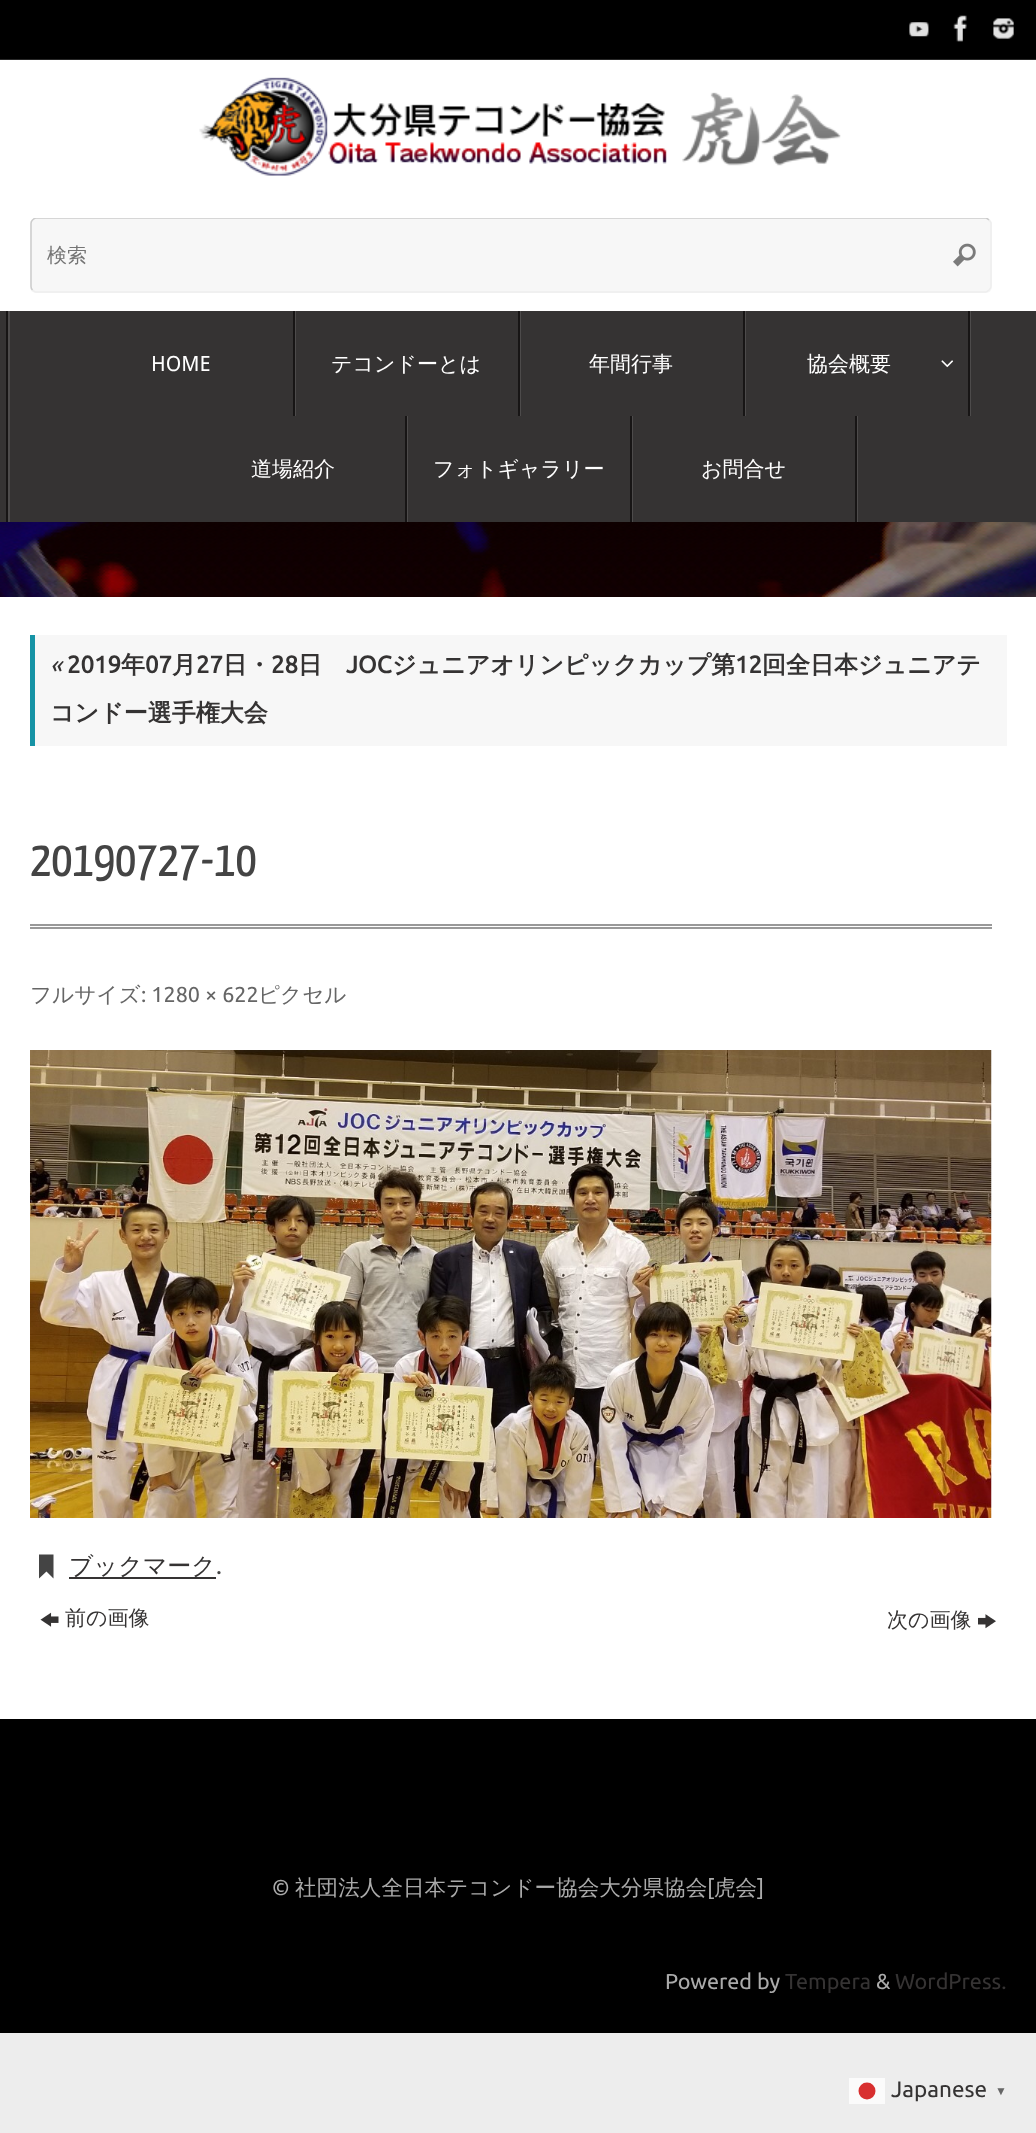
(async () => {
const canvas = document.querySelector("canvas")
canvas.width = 1036
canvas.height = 2133
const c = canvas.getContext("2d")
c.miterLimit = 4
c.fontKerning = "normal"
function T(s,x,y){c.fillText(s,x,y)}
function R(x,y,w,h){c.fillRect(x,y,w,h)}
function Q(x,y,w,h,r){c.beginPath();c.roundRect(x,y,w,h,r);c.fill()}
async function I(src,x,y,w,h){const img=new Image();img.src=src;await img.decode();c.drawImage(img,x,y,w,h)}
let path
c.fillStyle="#ededed"
R(0,0,1036,2133)
await I("1.png",0,522,1036,75)
c.fillStyle="#000"
R(0,0,1036,59)
c.fillStyle="#282828"
R(0,59,1036,1)
await I("2.png",909,22,20,15)
await I("3.png",953,15,14,27)
await I("4.png",993,18,21,21)
c.fillStyle="#fff"
R(0,60,1036,251)
await I("5.png",199,77,642,99)
c.fillStyle="#f7f7f7"
Q(30,218,962,75,6)
path = new Path2D("M989 220c1 1 2 2 2 3.5v63c0 1.5-1 2.5-2 3.5c-1 1-2 2-3.5 2h-949.5c-1.5 0-2.5-1-3.5-2")
c.strokeStyle="#eee"
c.lineWidth=1.5
c.stroke(path)
c.save()
c.beginPath()
c.rect(30,218,962,75)
c.clip()
path = new Path2D("M32.5 290c-1-1-1.5-2-1.5-3.5v-63c0-1.5 .5-2.5 1.5-3.5c1-1 2-2 3.5-2h949.5c1.5 0 2.5 1 3.5 2")
c.strokeStyle="#ccc"
c.stroke(path)
c.restore()
c.font="500 20px WenQuanYi Zen Hei"
c.fillStyle="#757575"
T("検索",47,262)
await I("6.png",953,243,23,24)
c.fillStyle="#353333"
R(0,311,1036,211)
c.fillStyle="#171515"
R(6,311,2,211)
c.fillStyle="#4d4b4b"
R(8,311,2,211)
path = new Path2D("M71 416h225v-105h-2v105z")
c.fill(path)
c.fillStyle="#171515"
R(293,311,2,105)
c.font="21px Droid Sans"
c.fillStyle="#fff"
T("HOME",151,371)
c.fillStyle="#4d4b4b"
path = new Path2D("M296 416h225v-105h-2v105z")
c.fill(path)
c.fillStyle="#171515"
R(518,311,2,105)
c.font="500 21px WenQuanYi Zen Hei"
c.fillStyle="#fff"
T("テコンドーとは",331,371)
c.fillStyle="#4d4b4b"
path = new Path2D("M521 416h225v-105h-2v105z")
c.fill(path)
c.fillStyle="#171515"
R(743,311,2,105)
c.fillStyle="#fff"
T("年間行事",589,371)
c.fillStyle="#4d4b4b"
path = new Path2D("M746 416h225v-105h-2v105z")
c.fill(path)
c.fillStyle="#171515"
R(968,311,2,105)
c.fillStyle="#fff"
T("協会概要",807,371)
await I("7.png",941,360,13,8)
c.fillStyle="#4d4b4b"
R(407,416,1,106)
c.fillStyle="#171515"
R(405,416,2,106)
c.fillStyle="#fff"
T("道場紹介",251,476)
c.fillStyle="#4d4b4b"
R(632,416,1,106)
c.fillStyle="#171515"
R(630,416,2,106)
c.fillStyle="#fff"
T("フォトギャラリー",433,476)
c.fillStyle="#4d4b4b"
R(857,416,1,106)
c.fillStyle="#171515"
R(855,416,2,106)
c.fillStyle="#fff"
T("お問合せ",701,476)
R(0,597,1036,1122)
c.fillStyle="#f7f7f7"
R(35,635,972,111)
c.fillStyle="#1693a5"
R(30,635,5,111)
c.font="italic 24px Ubuntu"
c.fillStyle="#353333"
T("«",50,673)
c.font="bold 24px Ubuntu"
T("2019",67,673)
c.font="bold 24px WenQuanYi Zen Hei"
T("年",121,673)
c.font="bold 24px Ubuntu"
T("07",145,673)
c.font="bold 24px WenQuanYi Zen Hei"
T("月",172,673)
c.font="bold 24px Ubuntu"
T("27",196,673)
c.font="bold 24px WenQuanYi Zen Hei"
T("日・",223,673)
c.font="bold 24px Ubuntu"
T("28",271,673)
c.font="bold 24px WenQuanYi Zen Hei"
T("日",298,673)
c.font="bold 24px Ubuntu"
T("JOC",346,673)
c.font="bold 24px WenQuanYi Zen Hei"
T("ジュニアオリンピックカップ第",392,673)
c.font="bold 24px Ubuntu"
T("12",735,673)
c.font="bold 24px WenQuanYi Zen Hei"
T("回全日本ジュニアテ",762,673)
T("コンドー選手権大会",50,721)
c.fillStyle="#999"
R(30,924,962,2)
R(30,927,962,2)
c.font="51px Yanone Kaffeesatz"
c.fillStyle="#444"
T("20190727-10",30,876)
c.font="500 21.6px WenQuanYi Zen Hei"
c.fillStyle="#666"
T("フルサイズ",30,1002)
c.font="21.6px Ubuntu"
T(": 1280 × 622",141,1002)
c.font="500 21.6px WenQuanYi Zen Hei"
T("ピクセル",258,1002)
await I("8.png",30,1050,962,468)
c.fillStyle="#444"
path = new Path2D("M39 1576.5v-22h14.5v24l-7-7l-7.5 7z")
c.fill(path)
c.fillStyle="#353333"
R(69,1577,147,2)
c.font="500 24px WenQuanYi Zen Hei"
T("ブックマーク",69,1574)
c.font="24px Ubuntu"
c.fillStyle="#444"
T(".",216,1574)
await I("9.png",40,1612,19,15)
c.font="500 21px WenQuanYi Zen Hei"
c.fillStyle="#353333"
T("前の画像",65,1625)
T("次の画像",887,1627)
await I("10.png",978,1614,18,15)
c.fillStyle="#000"
R(0,1719,1036,314)
c.font="21.6px Ubuntu"
c.fillStyle="#aaa"
T("©",272,1895)
c.font="500 21.6px WenQuanYi Zen Hei"
T("社団法人全日本テコンドー協会大分県協会",295,1895)
c.font="21.6px Ubuntu"
T("[",707,1895)
c.font="500 21.6px WenQuanYi Zen Hei"
T("虎会",714,1895)
c.font="21.6px Ubuntu"
T("]",757,1895)
T("Powered by",665,1989)
c.fillStyle="#353333"
T("Tempera",785,1989)
c.fillStyle="#aaa"
T("&",876,1989)
c.fillStyle="#353333"
T("WordPress.",895,1989)
c.font="22.5px Ubuntu"
T("Japanese",891,2097)
c.fillStyle="#fbfbfb"
R(849,2078,36,26)
c.fillStyle="#d82f2f"
c.beginPath()
c.arc(867,2091,8.5,0,7)
c.fill()
c.font="bold 12px Liberation Serif"
c.fillStyle="#666"
T("▼",995,2095)
})()
